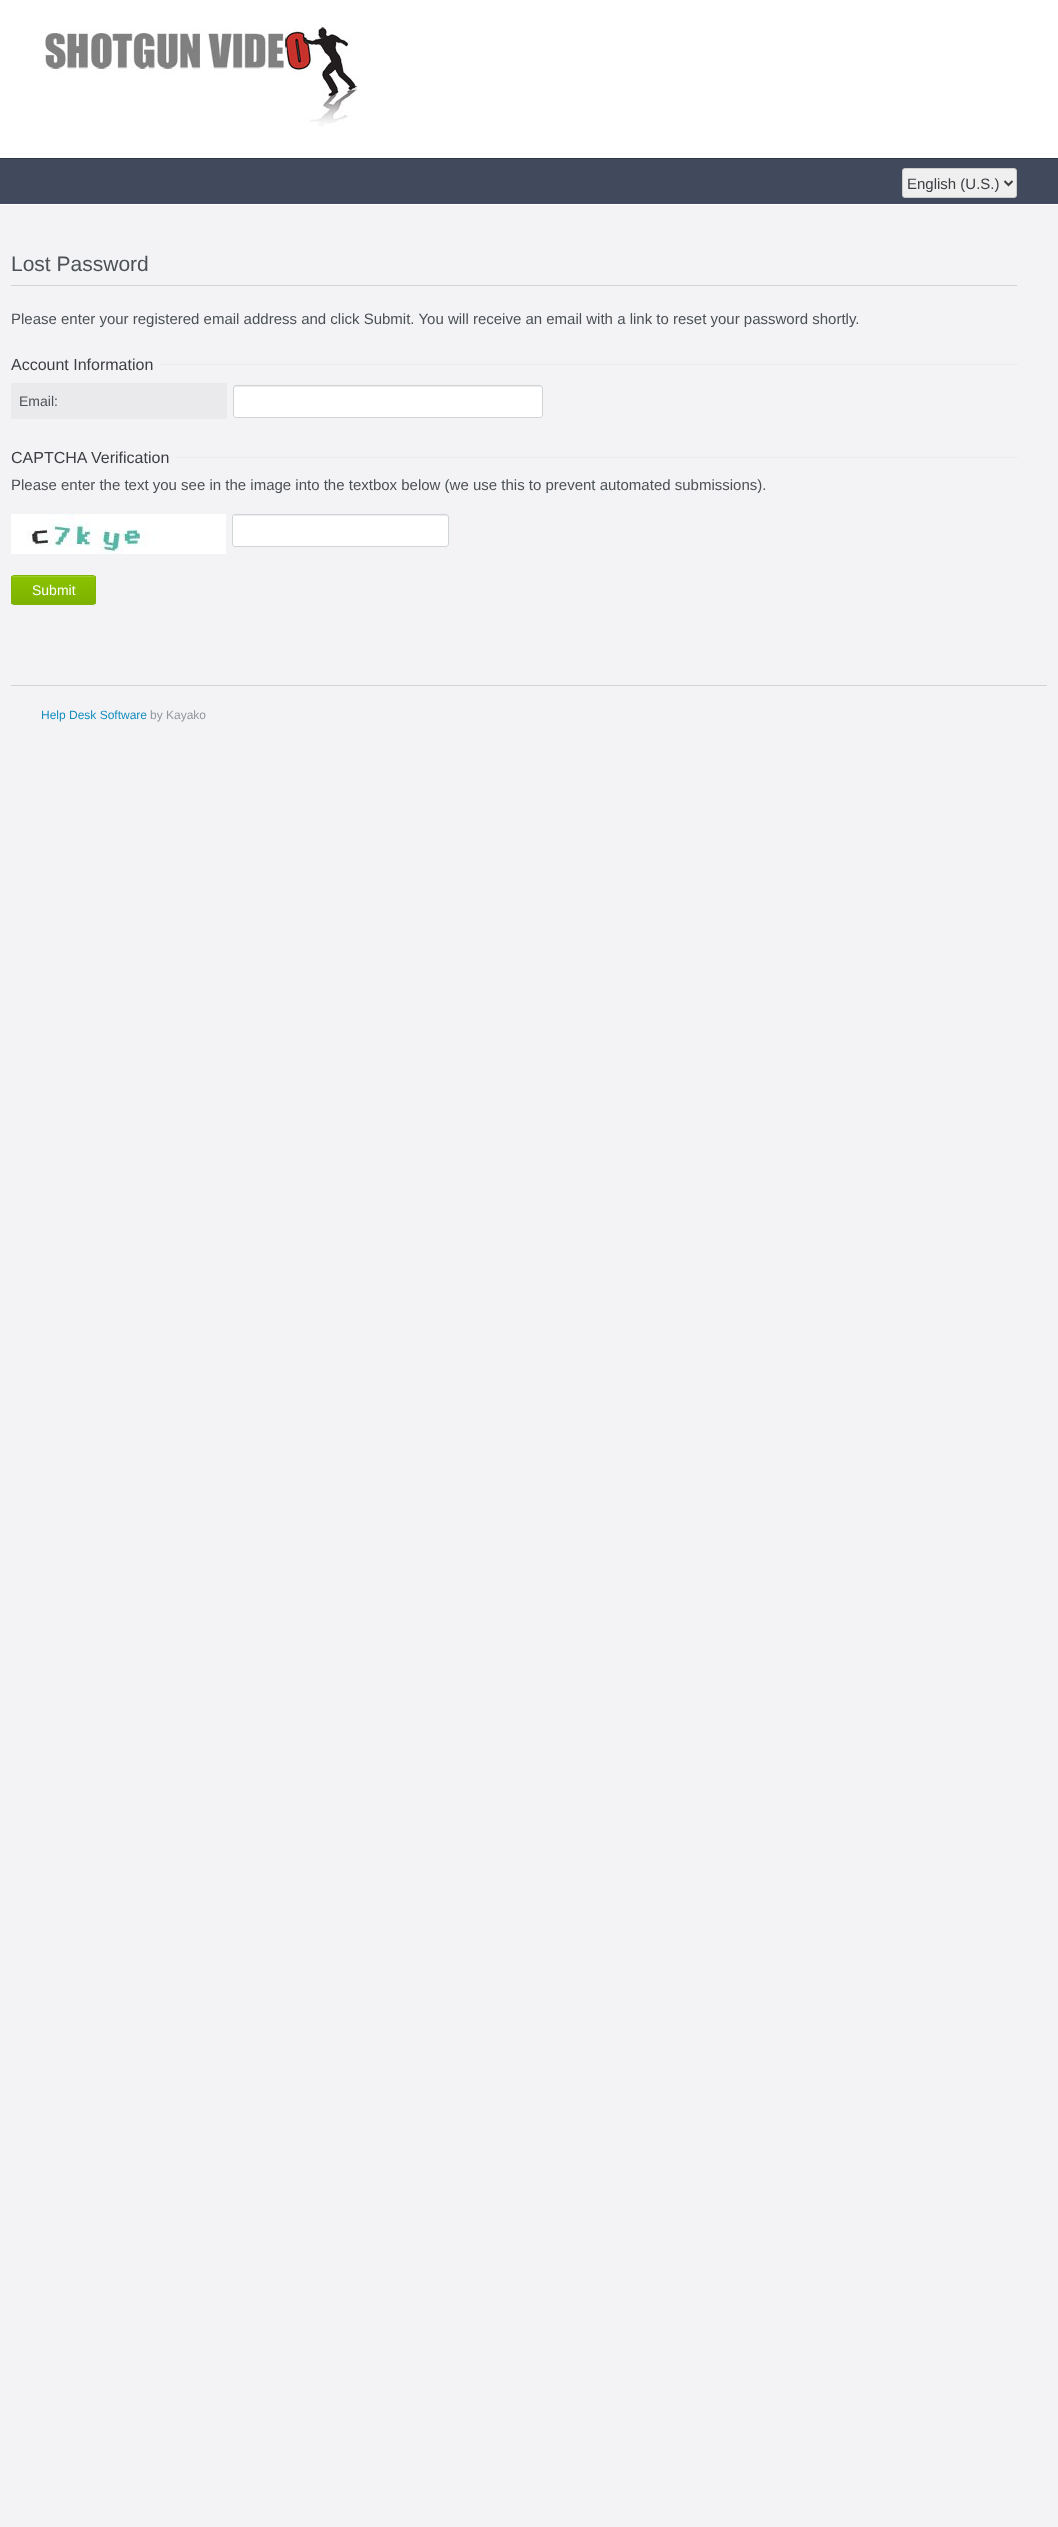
(async () => {
const canvas = document.querySelector("canvas")
canvas.width = 1058
canvas.height = 2527
const c = canvas.getContext("2d")
c.miterLimit = 4
c.fontKerning = "normal"
function T(s,x,y){c.fillText(s,x,y)}
function R(x,y,w,h){c.fillRect(x,y,w,h)}
function Q(x,y,w,h,r){c.beginPath();c.roundRect(x,y,w,h,r);c.fill()}
async function I(src,x,y,w,h){const img=new Image();img.src=src;await img.decode();c.drawImage(img,x,y,w,h)}
let gradient, path
c.fillStyle="#f3f3f5"
R(0,0,1058,2527)
c.fillStyle="#fff"
R(0,0,1058,158)
await I("1.png",43,25,317,102)
c.fillStyle="#414a5c"
R(0,159,1058,45)
c.fillStyle="#2d3646"
R(0,158,1058,1)
c.fillStyle="#fff"
R(0,204,1058,1)
c.fillStyle="#efefef"
c.beginPath()
c.roundRect(902.5,168.5,114,29,2.5)
c.fill()
c.strokeStyle="#ccc"
c.stroke()
path = new Path2D("M1004.5 181l4 4l4-4")
c.strokeStyle="#3c3e43"
c.lineWidth=2
c.stroke(path)
c.font="15px Liberation Sans"
c.fillStyle="#3c3e43"
T("English (U.S.)",907,189)
c.fillStyle="#cfd4d6"
R(11,285,1006,1)
c.font="21px Liberation Sans"
c.fillStyle="#4c5156"
T("Lost Password",11,271)
c.font="15px Liberation Sans"
T("Please enter your registered email address and click Submit. You will receive an email with a link to reset your password shortly.",11,324)
c.font="16px Liberation Sans"
c.fillStyle="#3c3e43"
T("Account Information",11,370)
c.fillStyle="#ececec"
R(160,364,858,1)
c.fillStyle="#eaeaec"
R(11,383,216,36)
c.font="14px Liberation Sans"
c.fillStyle="#4c5156"
T("Email:",19,406)
c.fillStyle="#fff"
Q(233,385,310,33,3)
c.fillStyle="#ececec"
path = new Path2D("M236 387h304c1 0 2 1 2 2c0-1 0-3-2-3h-305l-1 1v2c0-1 1-2 2-2z")
c.fill(path)
c.beginPath()
c.roundRect(233.5,385.5,309,32,2.5)
c.strokeStyle="#cfd4d6"
c.lineWidth=1
c.stroke()
c.font="16px Liberation Sans"
c.fillStyle="#3c3e43"
T("CAPTCHA Verification",11,463)
c.fillStyle="#ececec"
R(176,457,842,1)
c.font="15px Liberation Sans"
c.fillStyle="#4c5156"
T("Please enter the text you see in the image into the textbox below (we use this to prevent automated submissions).",11,490)
await I("2.png",11,514,215,40)
c.fillStyle="#fff"
Q(232,514,217,33,3)
c.fillStyle="#ececec"
path = new Path2D("M235 516h211c1 0 2 1 2 2c0-1 0-3-2-3h-211l-1 1l-1 2c0-1 1-2 2-2z")
c.fill(path)
c.beginPath()
c.roundRect(232.5,514.5,216,32,2.5)
c.stroke()
c.save()
c.beginPath()
c.roundRect(11,575,85,30,3)
c.clip()
gradient = c.createLinearGradient(12,576,12,604)
gradient.addColorStop(0,"#8ac400")
gradient.addColorStop(1,"#7db100")
c.fillStyle = gradient
R(11,576,85,28)
c.restore()
c.fillStyle="#ffffff33"
path = new Path2D("M14 577h79c1 0 2 1 2 2c0-7-12-3-15-3h-53c-3 0-15-4-15 3c0-1 1-2 2-2z")
c.fill(path)
c.beginPath()
c.roundRect(11.5,575.5,84,29,2.5)
c.strokeStyle="#80b506"
c.stroke()
c.font="14px Liberation Sans"
c.fillStyle="#fff"
T("Submit",32,595)
c.fillStyle="#cfd4d6"
R(11,685,1036,1)
c.font="12px Liberation Sans"
c.fillStyle="#128dbe"
T("Help Desk Software",41,719)
c.fillStyle="#92969b"
T("by Kayako",150,719)
})()
